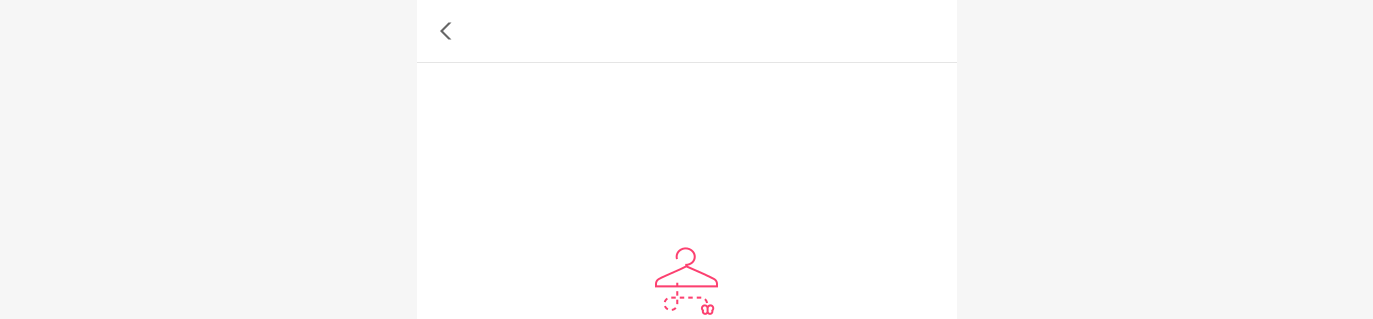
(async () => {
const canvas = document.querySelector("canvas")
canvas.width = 1373
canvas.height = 319
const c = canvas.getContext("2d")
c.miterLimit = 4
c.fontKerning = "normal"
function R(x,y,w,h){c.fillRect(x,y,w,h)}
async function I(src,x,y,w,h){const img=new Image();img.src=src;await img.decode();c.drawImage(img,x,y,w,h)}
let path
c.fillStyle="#f6f6f6"
R(0,0,1373,319)
c.fillStyle="#fff"
R(417,0,540,319)
c.fillStyle="#e5e5e5"
R(417,62,540,1)
c.fillStyle="#666"
path = new Path2D("M451.5 22.5l-8.5 8.5l8.5 8.5h-3l-8.5-8.5l8.5-8.5z")
c.fill(path)
await I("1.png",655,247,63,68)
})()
